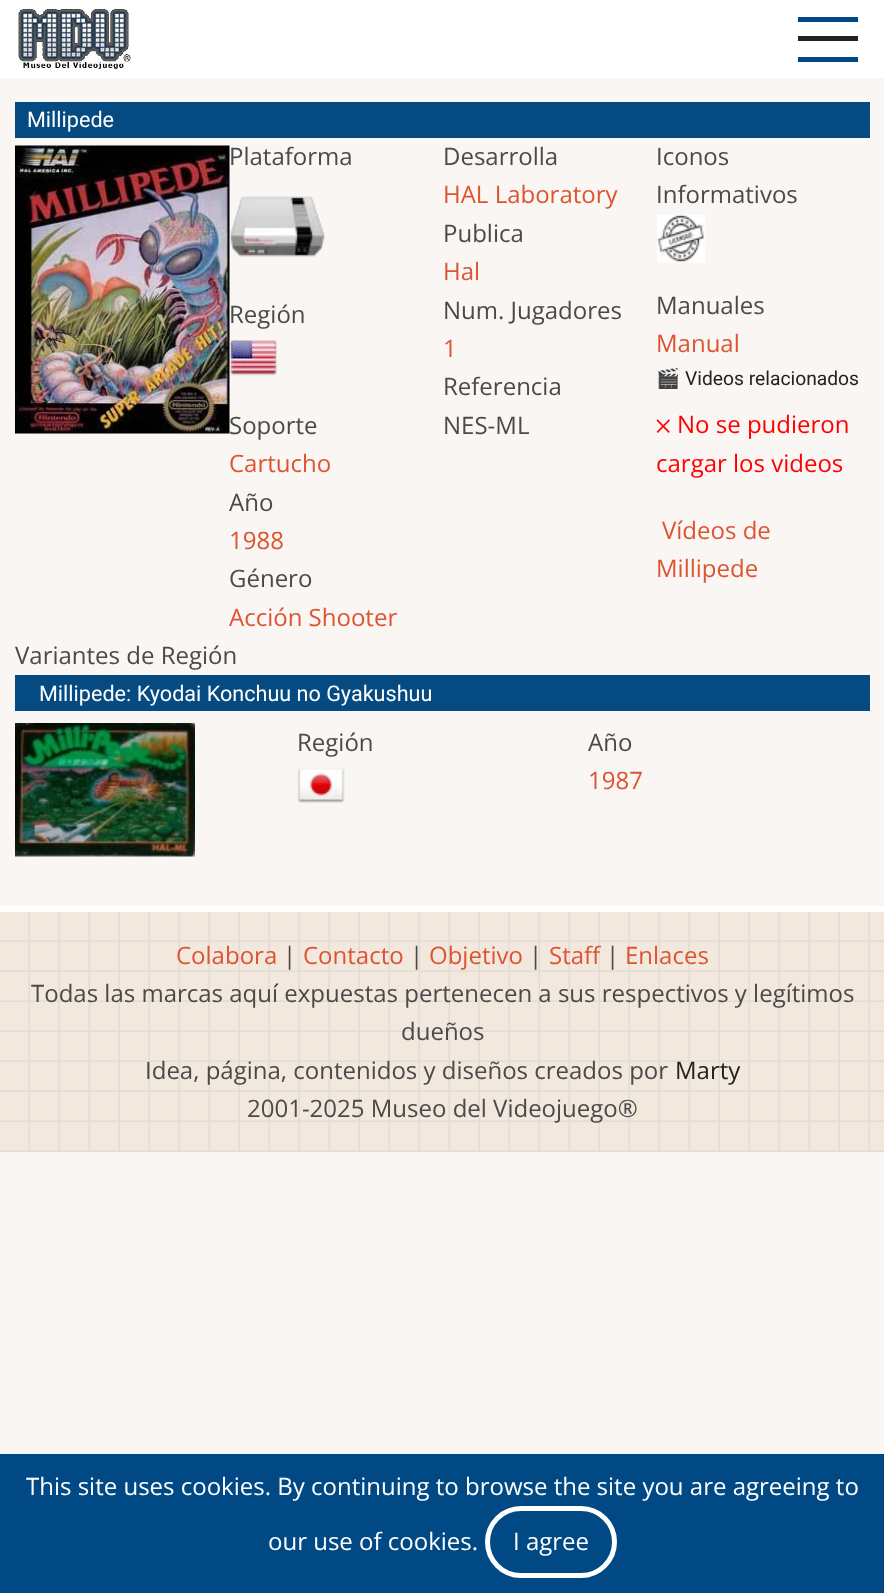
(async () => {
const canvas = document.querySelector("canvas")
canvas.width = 884
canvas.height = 1593
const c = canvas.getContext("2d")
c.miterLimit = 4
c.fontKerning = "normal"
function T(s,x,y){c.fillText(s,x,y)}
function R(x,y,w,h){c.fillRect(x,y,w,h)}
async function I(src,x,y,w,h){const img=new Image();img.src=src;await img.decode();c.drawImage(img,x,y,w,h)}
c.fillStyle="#f9f6f3"
R(0,0,884,1593)
c.fillStyle="#fff"
R(0,0,884,78)
await I("1.png",18,9,113,60)
c.fillStyle="#004984"
R(798,17,60,5)
c.fillStyle="#222"
R(798,36,60,5)
c.fillStyle="#004984"
R(798,57,60,5)
c.fillStyle="#054b81"
R(15,102,855,36)
c.font="21.6px Roboto"
c.fillStyle="#fff"
T("Millipede",27,127)
await I("2.png",15,145,215,289)
c.font="24px Open Sans"
c.fillStyle="#4a4a4a"
T("Plataforma",229,165)
await I("3.png",230,196,95,61)
T("Región",229,323)
await I("4.png",230,340,47,36)
T("Soporte",229,434)
c.fillStyle="#dc5431"
T("Cartucho",229,472)
c.fillStyle="#4a4a4a"
T("Año",229,511)
c.fillStyle="#dc5431"
T("1988",229,549)
c.fillStyle="#4a4a4a"
T("Género",229,587)
c.fillStyle="#dc5431"
T("Acción Shooter",229,626)
c.fillStyle="#4a4a4a"
T("Desarrolla",443,165)
c.fillStyle="#dc5431"
T("HAL Laboratory",443,203)
c.fillStyle="#4a4a4a"
T("Publica",443,242)
c.fillStyle="#dc5431"
T("Hal",443,280)
c.fillStyle="#4a4a4a"
T("Num. Jugadores",443,319)
c.fillStyle="#dc5431"
T("1",443,357)
c.fillStyle="#4a4a4a"
T("Referencia",443,395)
T("NES-ML",443,434)
T("Iconos",656,165)
T("Informativos",656,203)
await I("5.png",657,214,48,49)
T("Manuales",656,314)
c.fillStyle="#dc5431"
T("Manual",656,352)
c.font="19.25px Noto Color Emoji"
c.fillStyle="#222"
T("🎬",656,385)
c.font="19.25px Roboto"
T("Videos relacionados",685,385)
c.font="24px Ubuntu"
c.fillStyle="#f00"
T("❌",656,433)
c.font="24px Open Sans"
T("No se pudieron",677,433)
T("cargar los videos",656,472)
c.fillStyle="#dc5431"
T("Vídeos de",662,539)
T("Millipede",656,577)
c.fillStyle="#4a4a4a"
T("Variantes de Región",15,664)
c.fillStyle="#054b81"
R(15,675,855,36)
c.font="21.6px Roboto"
c.fillStyle="#fff"
T("Millipede: Kyodai Konchuu no Gyakushuu",39,701)
await I("6.png",15,723,180,134)
c.font="24px Open Sans"
c.fillStyle="#4a4a4a"
T("Región",297,751)
await I("7.png",297,768,48,35)
T("Año",588,751)
c.fillStyle="#dc5431"
T("1987",588,789)
c.fillStyle="#f2e8dd"
R(0,912,884,240)
await I("8.png",0,912,884,240)
c.fillStyle="#fff"
R(0,906,884,6)
c.fillStyle="#dc5431"
T("Colabora",176,964)
c.fillStyle="#4a4a4a"
T("|",283,964)
c.fillStyle="#dc5431"
T("Contacto",303,964)
c.fillStyle="#4a4a4a"
T("|",410,964)
c.fillStyle="#dc5431"
T("Objetivo",429,964)
c.fillStyle="#4a4a4a"
T("|",529,964)
c.fillStyle="#dc5431"
T("Staff",549,964)
c.fillStyle="#4a4a4a"
T("|",606,964)
c.fillStyle="#dc5431"
T("Enlaces",625,964)
c.fillStyle="#4a4a4a"
T("Todas las marcas aquí expuestas pertenecen a sus respectivos y legítimos",31,1002)
T("dueños",401,1040)
T("Idea, página, contenidos y diseños creados por",145,1079)
c.fillStyle="#222"
T("Marty",675,1079)
c.fillStyle="#4a4a4a"
T("2001-2025 Museo del Videojuego®",247,1117)
c.fillStyle="#004984"
R(0,1454,884,139)
c.fillStyle="#fff"
T("This site uses cookies. By continuing to browse the site you are agreeing to",26,1495)
T("our use of cookies.",268,1550)
c.beginPath()
c.roundRect(487.5,1508.5,127,67,33.5)
c.strokeStyle="#fff"
c.lineWidth=5
c.stroke()
T("I agree",513,1550)
})()
